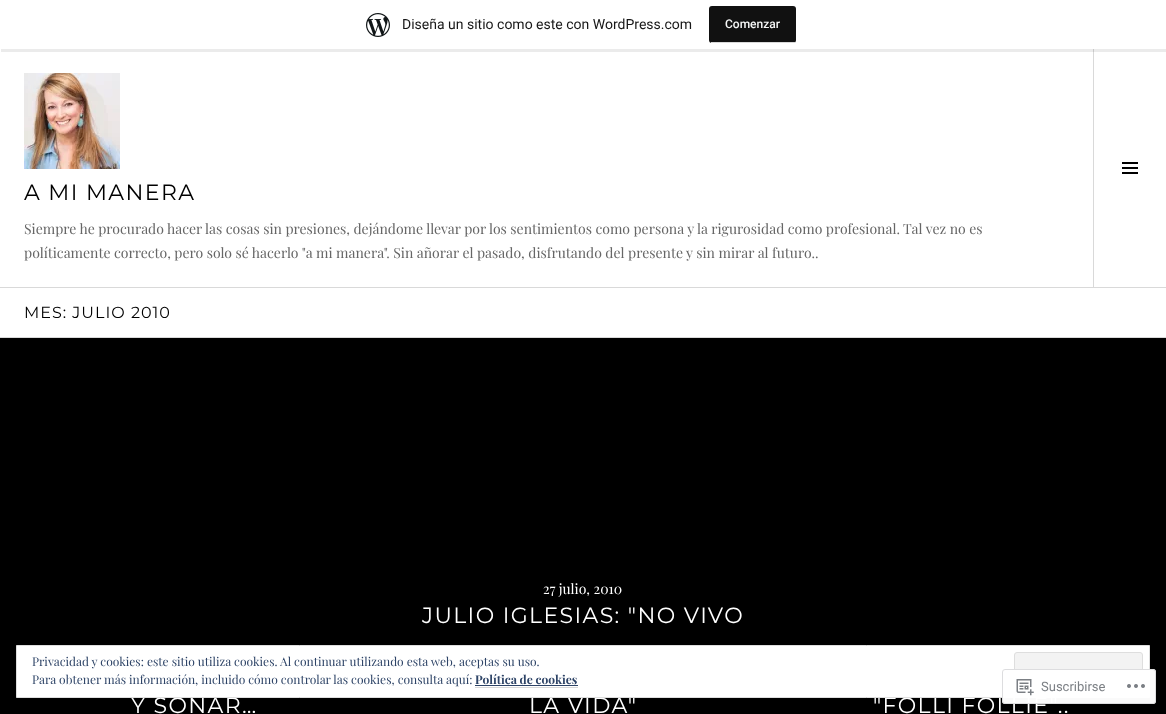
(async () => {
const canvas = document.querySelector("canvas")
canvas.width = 1166
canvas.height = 714
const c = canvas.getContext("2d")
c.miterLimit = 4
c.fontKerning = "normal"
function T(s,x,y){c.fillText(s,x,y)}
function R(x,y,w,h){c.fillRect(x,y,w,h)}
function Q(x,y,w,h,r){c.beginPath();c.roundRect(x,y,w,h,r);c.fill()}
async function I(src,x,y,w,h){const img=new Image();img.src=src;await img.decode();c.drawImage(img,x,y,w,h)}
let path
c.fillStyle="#fff"
R(0,0,1166,714)
c.fillStyle="#d9d9d9"
R(1093,49,1,238)
c.fillStyle="#00000014"
path = new Path2D("M1 49v3h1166v-49h-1v46z")
c.fill(path)
await I("1.png",366,13,24,24)
c.font="14px Roboto"
c.fillStyle="#171717"
T("Diseña un sitio como este con WordPress.com",402,29)
c.fillStyle="#111"
Q(709,6,87,37,3)
c.fillStyle="#d9d9d9"
R(711,42,84,1)
c.font="500 12px Roboto"
c.fillStyle="#f6f7f7"
T("Comenzar",725,28)
c.fillStyle="#d9d9d9"
R(0,287,1166,1)
await I("2.png",24,73,96,96)
c.letterSpacing="1.4px"
c.font="22px Montserrat"
c.fillStyle="#000"
T("A MI MANERA",24,200)
c.letterSpacing="0px"
c.font="14px Playfair Display"
c.fillStyle="#666"
T("Siempre he procurado hacer las cosas sin presiones, dejándome llevar por los sentimientos como persona y la rigurosidad como profesional. Tal vez no es",24,234)
T("políticamente correcto, pero solo sé hacerlo \"a mi manera\". Sin añorar el pasado, disfrutando del presente y sin mirar al futuro..",24,258)
await I("3.png",1122,162,16,12)
c.fillStyle="#d9d9d9"
R(0,337,1166,1)
c.letterSpacing="1px"
c.font="16px Montserrat"
c.fillStyle="#000"
T("MES: JULIO 2010",24,318)
R(0,338,1166,376)
c.letterSpacing="1.4px"
c.font="22px Montserrat"
c.fillStyle="#fff"
T("Y SOÑAR…",131,713)
c.letterSpacing="0px"
c.font="14px Playfair Display"
T("27 julio, 2010",543,594)
c.letterSpacing="1.4px"
c.font="22px Montserrat"
T("JULIO IGLESIAS: \"NO VIVO",422,623)
T("LA VIDA\"",529,713)
T("\"FOLLI FOLLIE\"..",873,713)
c.beginPath()
c.rect(16.5,645.5,1133,52)
c.fill()
c.strokeStyle="#dedede"
c.stroke()
c.letterSpacing="0px"
c.font="12px Playfair Display"
c.fillStyle="#2e4467"
T("Privacidad y cookies: este sitio utiliza cookies. Al continuar utilizando esta web, aceptas su uso.",32,666)
c.fillStyle="#f3f3f3"
c.beginPath()
c.roundRect(1014.5,652.5,128,38,2.5)
c.fill()
c.stroke()
c.fillStyle="#2e4467"
T("Para obtener más información, incluido cómo controlar las cookies, consulta aquí:",32,684)
c.font="bold 12px Playfair Display"
T("Política de cookies",475,684)
c.fillStyle="#d9d9d9"
R(475,687,103,1)
c.fillStyle="#2e4467"
R(475,685,103,1)
c.fillStyle="#fffffffa"
Q(1002,669,154,35,3)
c.beginPath()
c.roundRect(1002.5,669.5,153,34,2.5)
c.strokeStyle="#dcdcdefa"
c.stroke()
await I("4.png",1016,679,18,17)
c.font="13px Roboto"
c.fillStyle="#7b7f84"
T("Suscribirse",1041,691)
await I("5.png",1127,684,18,4)
})()
